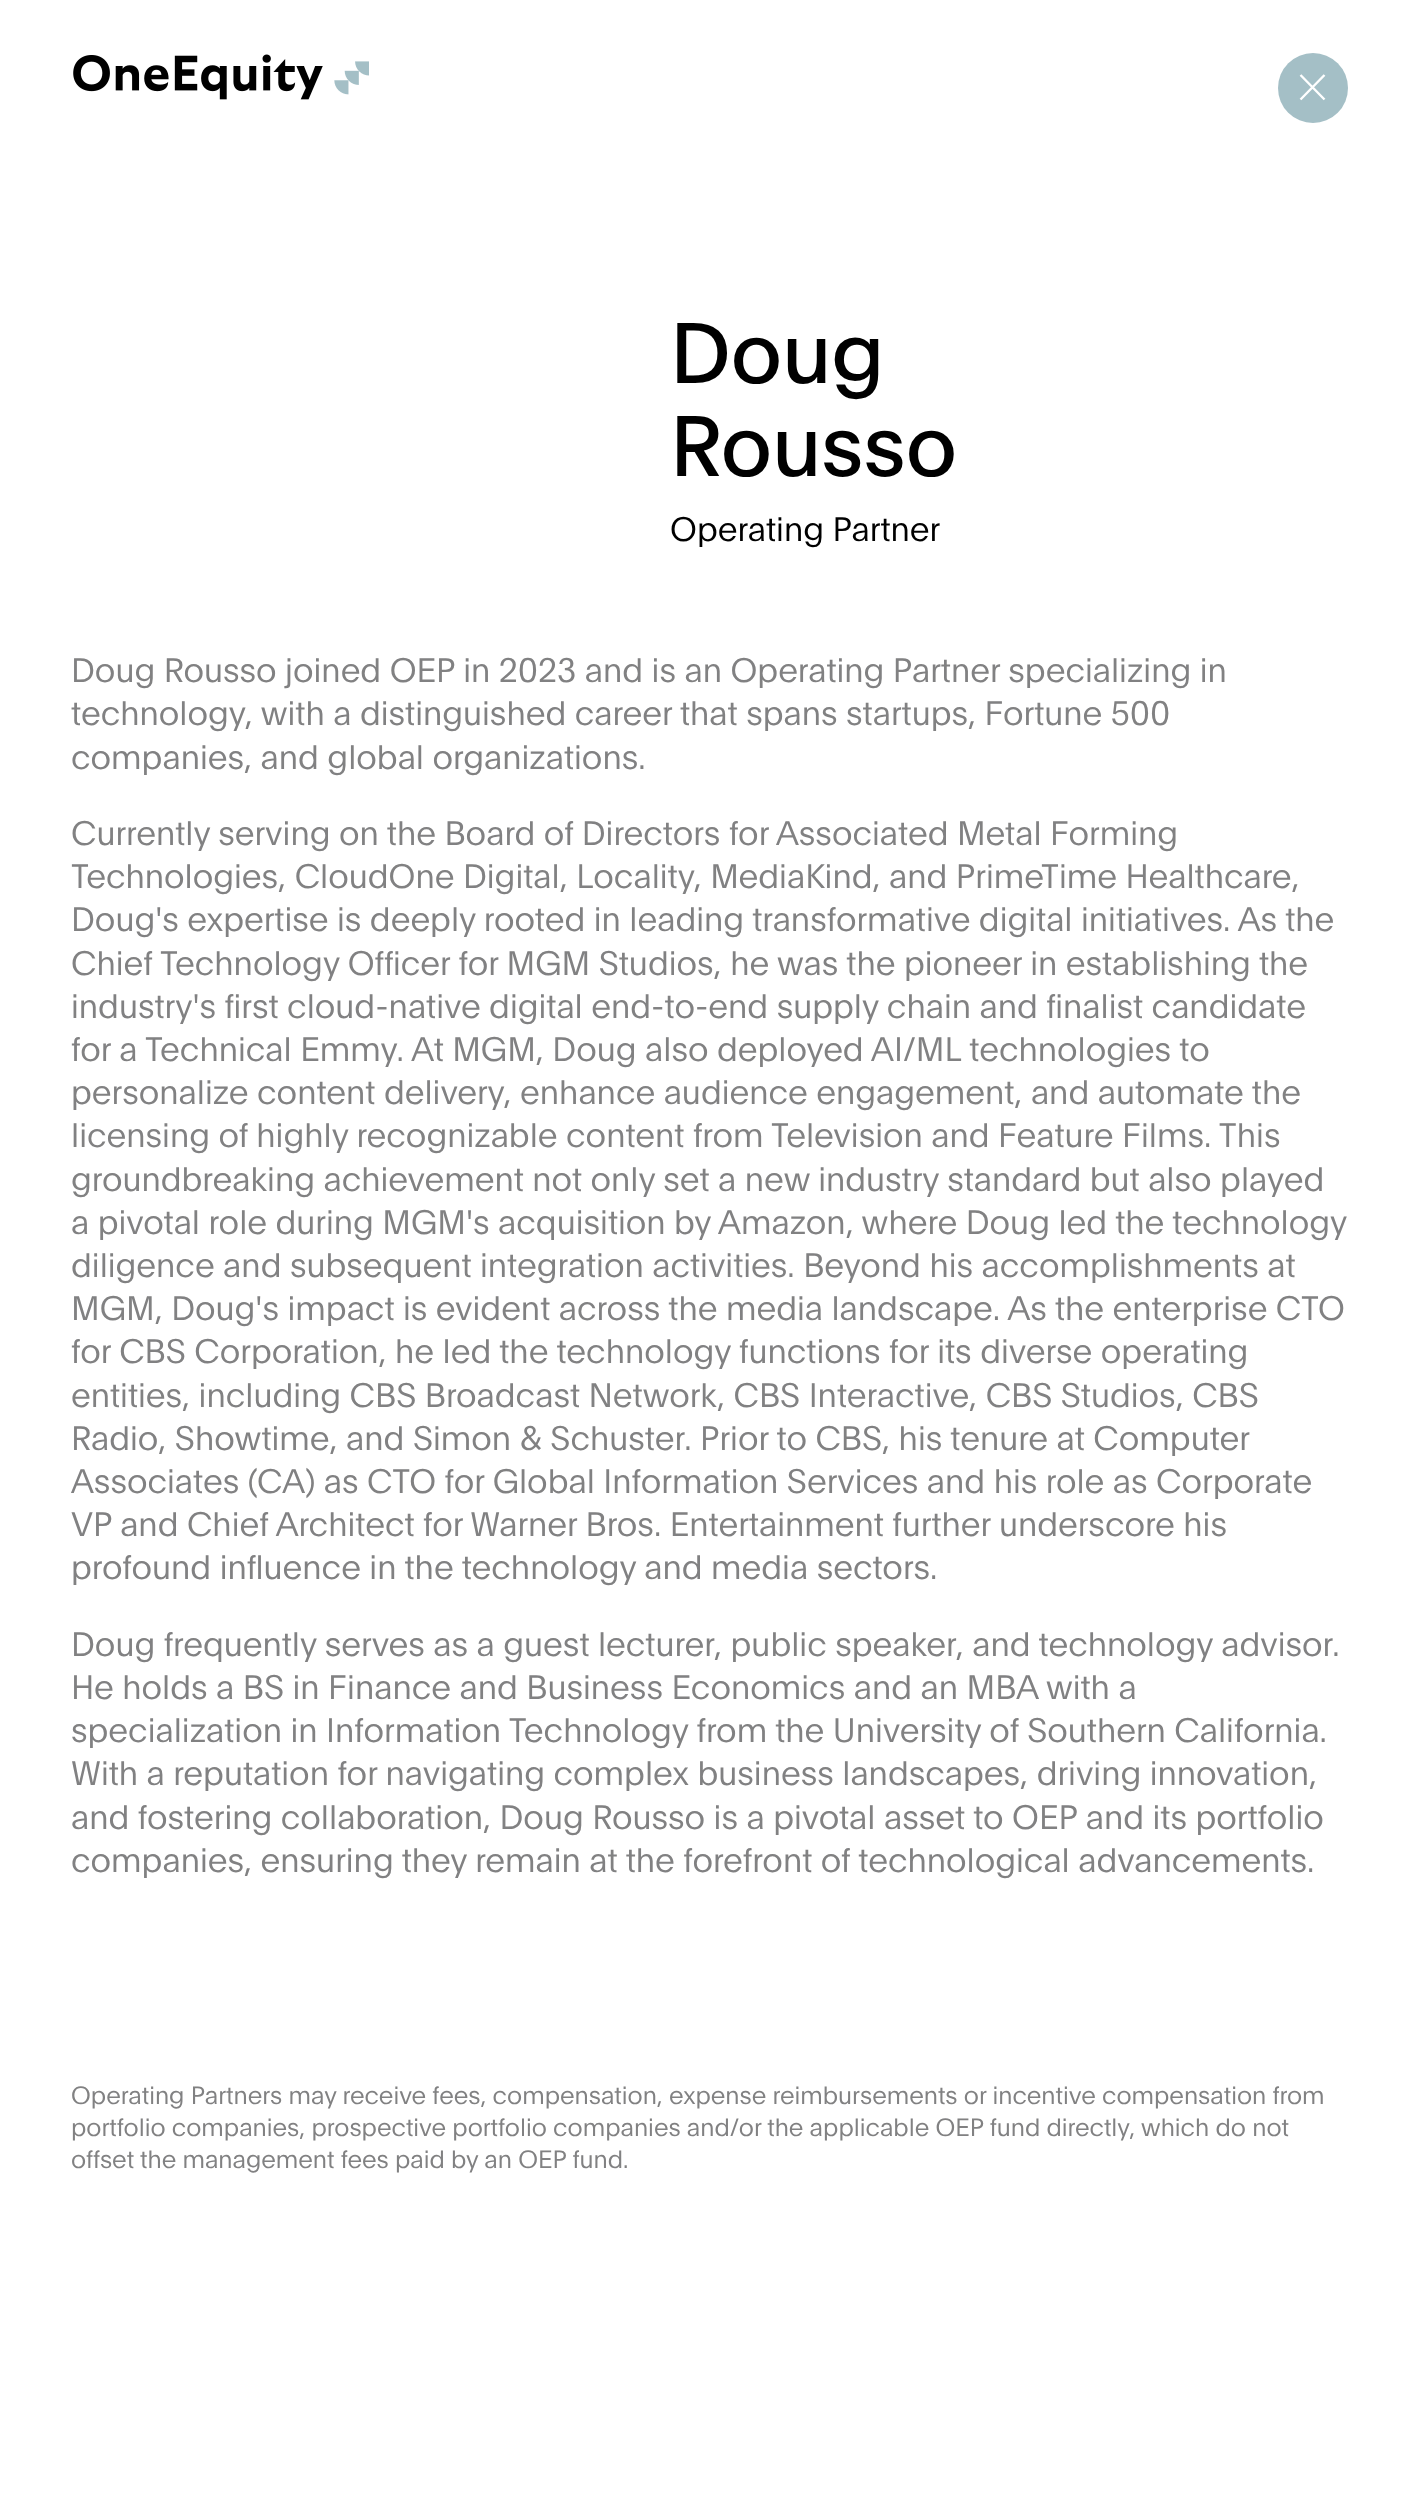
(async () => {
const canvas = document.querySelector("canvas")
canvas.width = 1421
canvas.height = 2494
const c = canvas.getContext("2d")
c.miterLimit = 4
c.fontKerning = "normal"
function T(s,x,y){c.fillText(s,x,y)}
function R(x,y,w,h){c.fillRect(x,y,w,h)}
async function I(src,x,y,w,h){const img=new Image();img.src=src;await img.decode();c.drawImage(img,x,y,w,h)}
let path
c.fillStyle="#fff"
R(0,0,1421,2494)
await I("1.png",73,54,250,46)
await I("2.png",334,61,35,34)
c.fillStyle="#a4bfc6"
c.beginPath()
c.arc(1313,88,35,0,7)
c.fill()
path = new Path2D("M1324.5 75l-24 24.5m0-24.5l24 24.5")
c.strokeStyle="#fff"
c.lineWidth=2.4
c.stroke(path)
c.font="84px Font"
c.fillStyle="#000"
T("Doug",670,383)
T("Rousso",670,476)
c.font="300 33.25px Font"
T("Operating Partner",670,541)
c.fillStyle="#818182"
T("Doug Rousso joined OEP in 2023 and is an Operating Partner specializing in",71,682)
T("technology, with a distinguished career that spans startups, Fortune 500",71,725)
T("companies, and global organizations.",71,769)
T("Currently serving on the Board of Directors for Associated Metal Forming",71,845)
T("Technologies, CloudOne Digital, Locality, MediaKind, and PrimeTime Healthcare,",71,888)
T("Doug's expertise is deeply rooted in leading transformative digital initiatives. As the",71,931)
T("Chief Technology Officer for MGM Studios, he was the pioneer in establishing the",71,975)
T("industry's first cloud-native digital end-to-end supply chain and finalist candidate",71,1018)
T("for a Technical Emmy. At MGM, Doug also deployed AI/ML technologies to",71,1061)
T("personalize content delivery, enhance audience engagement, and automate the",71,1104)
T("licensing of highly recognizable content from Television and Feature Films. This",71,1147)
T("groundbreaking achievement not only set a new industry standard but also played",71,1191)
T("a pivotal role during MGM's acquisition by Amazon, where Doug led the technology",71,1234)
T("diligence and subsequent integration activities. Beyond his accomplishments at",71,1277)
T("MGM, Doug's impact is evident across the media landscape. As the enterprise CTO",71,1320)
T("for CBS Corporation, he led the technology functions for its diverse operating",71,1363)
T("entities, including CBS Broadcast Network, CBS Interactive, CBS Studios, CBS",71,1407)
T("Radio, Showtime, and Simon & Schuster. Prior to CBS, his tenure at Computer",71,1450)
T("Associates (CA) as CTO for Global Information Services and his role as Corporate",71,1493)
T("VP and Chief Architect for Warner Bros. Entertainment further underscore his",71,1536)
T("profound influence in the technology and media sectors.",71,1579)
T("Doug frequently serves as a guest lecturer, public speaker, and technology advisor.",71,1656)
T("He holds a BS in Finance and Business Economics and an MBA with a",71,1699)
T("specialization in Information Technology from the University of Southern California.",71,1742)
T("With a reputation for navigating complex business landscapes, driving innovation,",71,1785)
T("and fostering collaboration, Doug Rousso is a pivotal asset to OEP and its portfolio",71,1829)
T("companies, ensuring they remain at the forefront of technological advancements.",71,1872)
c.font="300 24.5px Font"
T("Operating Partners may receive fees, compensation, expense reimbursements or incentive compensation from",71,2104)
T("portfolio companies, prospective portfolio companies and/or the applicable OEP fund directly, which do not",71,2136)
T("offset the management fees paid by an OEP fund.",71,2168)
})()
